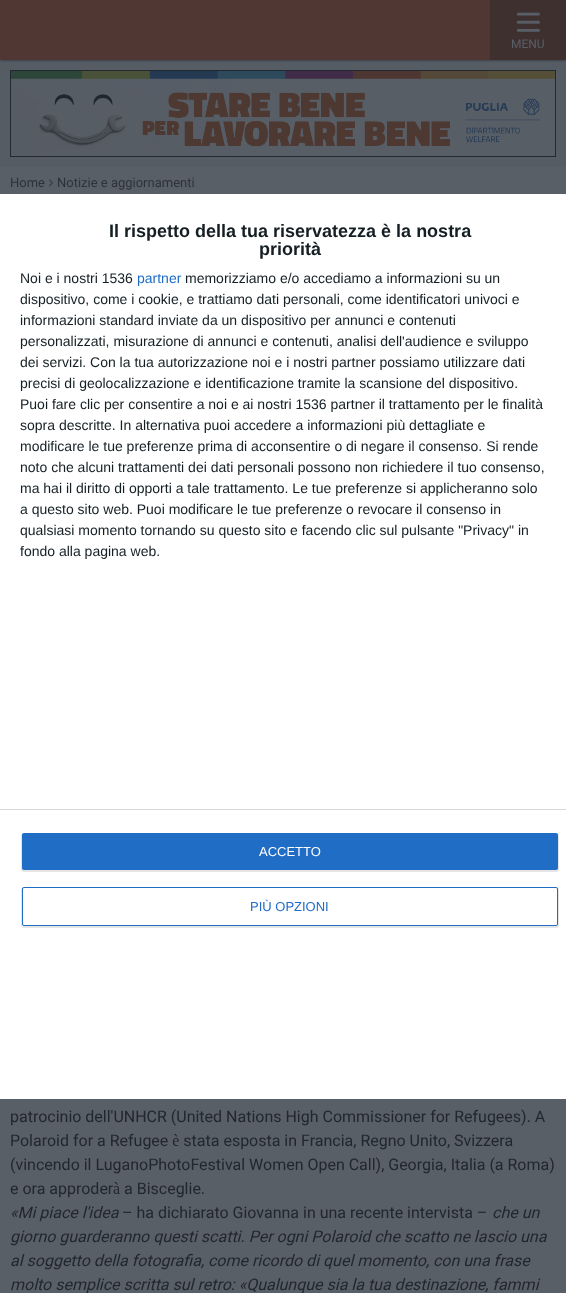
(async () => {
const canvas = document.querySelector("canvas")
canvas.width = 566
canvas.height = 1293
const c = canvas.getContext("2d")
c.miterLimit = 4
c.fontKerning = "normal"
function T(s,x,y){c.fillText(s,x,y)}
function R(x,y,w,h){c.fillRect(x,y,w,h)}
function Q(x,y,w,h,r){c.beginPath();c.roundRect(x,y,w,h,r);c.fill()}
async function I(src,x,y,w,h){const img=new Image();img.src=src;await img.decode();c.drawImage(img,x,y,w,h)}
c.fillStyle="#595f67"
R(0,0,566,1293)
c.fillStyle="#565c64"
R(0,60,566,107)
c.fillStyle="#191f27cc"
c.filter="blur(1.5px)"
c.beginPath()
c.rect(0,0,566,60)
c.fill()
c.filter="none"
c.fillStyle="#503734"
R(0,0,490,60)
c.fillStyle="#3f3030"
R(490,0,76,60)
await I("1.png",517,12,23,20)
c.font="12px Roboto"
c.fillStyle="#595f67"
T("MENU",511,48)
await I("2.png",10,70,546,87)
c.font="13px Roboto"
c.fillStyle="#2d333b"
T("Home",10,187)
await I("3.png",49,179,4,8)
T("Notizie e aggiornamenti",57,187)
c.font="16px Roboto"
c.fillStyle="#21272f"
T("patrocinio dell'UNHCR (United Nations High Commissioner for Refugees). A",10,1122)
T("Polaroid for a Refugee è stata esposta in Francia, Regno Unito, Svizzera",10,1146)
T("(vincendo il LuganoPhotoFestival Women Open Call), Georgia, Italia (a Roma)",10,1170)
T("e ora approderà a Bisceglie.",10,1194)
c.font="italic 16px Roboto"
T("«Mi piace l'idea",10,1218)
c.font="16px Roboto"
T("– ha dichiarato Giovanna in una recente intervista –",122,1218)
c.font="italic 16px Roboto"
T("che un",492,1218)
T("giorno guarderanno questi scatti. Per ogni Polaroid che scatto ne lascio una",10,1242)
T("al soggetto della fotografia, come ricordo di quel momento, con una frase",10,1266)
T("molto semplice scritta sul retro: «Qualunque sia la tua destinazione, fammi",10,1290)
c.fillStyle="#fff"
R(0,194,566,905)
c.font="bold 18px Liberation Sans"
c.fillStyle="#141e23"
T("Il rispetto della tua riservatezza è la nostra",109,237)
T("priorità",259,255)
c.font="14px Liberation Sans"
T("Noi e i nostri 1536",20,283)
c.fillStyle="#206dc5"
T("partner",137,283)
c.fillStyle="#141e23"
T("memorizziamo e/o accediamo a informazioni su un",185,283)
T("dispositivo, come i cookie, e trattiamo dati personali, come identificatori univoci e",20,304)
T("informazioni standard inviate da un dispositivo per annunci e contenuti",20,325)
T("personalizzati, misurazione di annunci e contenuti, analisi dell'audience e sviluppo",20,346)
T("dei servizi. Con la tua autorizzazione noi e i nostri partner possiamo utilizzare dati",20,367)
T("precisi di geolocalizzazione e identificazione tramite la scansione del dispositivo.",20,388)
T("Puoi fare clic per consentire a noi e ai nostri 1536 partner il trattamento per le finalità",20,409)
T("sopra descritte. In alternativa puoi accedere a informazioni più dettagliate e",20,430)
T("modificare le tue preferenze prima di acconsentire o di negare il consenso. Si rende",20,451)
T("noto che alcuni trattamenti dei dati personali possono non richiedere il tuo consenso,",20,472)
T("ma hai il diritto di opporti a tale trattamento. Le tue preferenze si applicheranno solo",20,493)
T("a questo sito web. Puoi modificare le tue preferenze o revocare il consenso in",20,514)
T("qualsiasi momento tornando su questo sito e facendo clic sul pulsante \"Privacy\" in",20,535)
T("fondo alla pagina web.",20,556)
c.fillStyle="#d8d8d8"
R(0,809,566,1)
c.fillStyle="#0000001a"
c.filter="blur(0.5px)"
c.beginPath()
c.roundRect(21,833,538,39,3)
c.fill()
c.filter="none"
c.fillStyle="#206dc5"
Q(22,833,536,37,2)
c.font="13px Liberation Sans"
c.fillStyle="#fff"
T("ACCETTO",259,856)
c.fillStyle="#0000001a"
c.filter="blur(0.5px)"
c.beginPath()
c.roundRect(21,887,538,41,3)
c.fill()
c.filter="none"
c.fillStyle="#fff"
c.beginPath()
c.roundRect(22.5,887.5,535,38,1.5)
c.fill()
c.strokeStyle="#206dc5"
c.stroke()
c.fillStyle="#206dc5"
T("PIÙ OPZIONI",250,911)
})()
